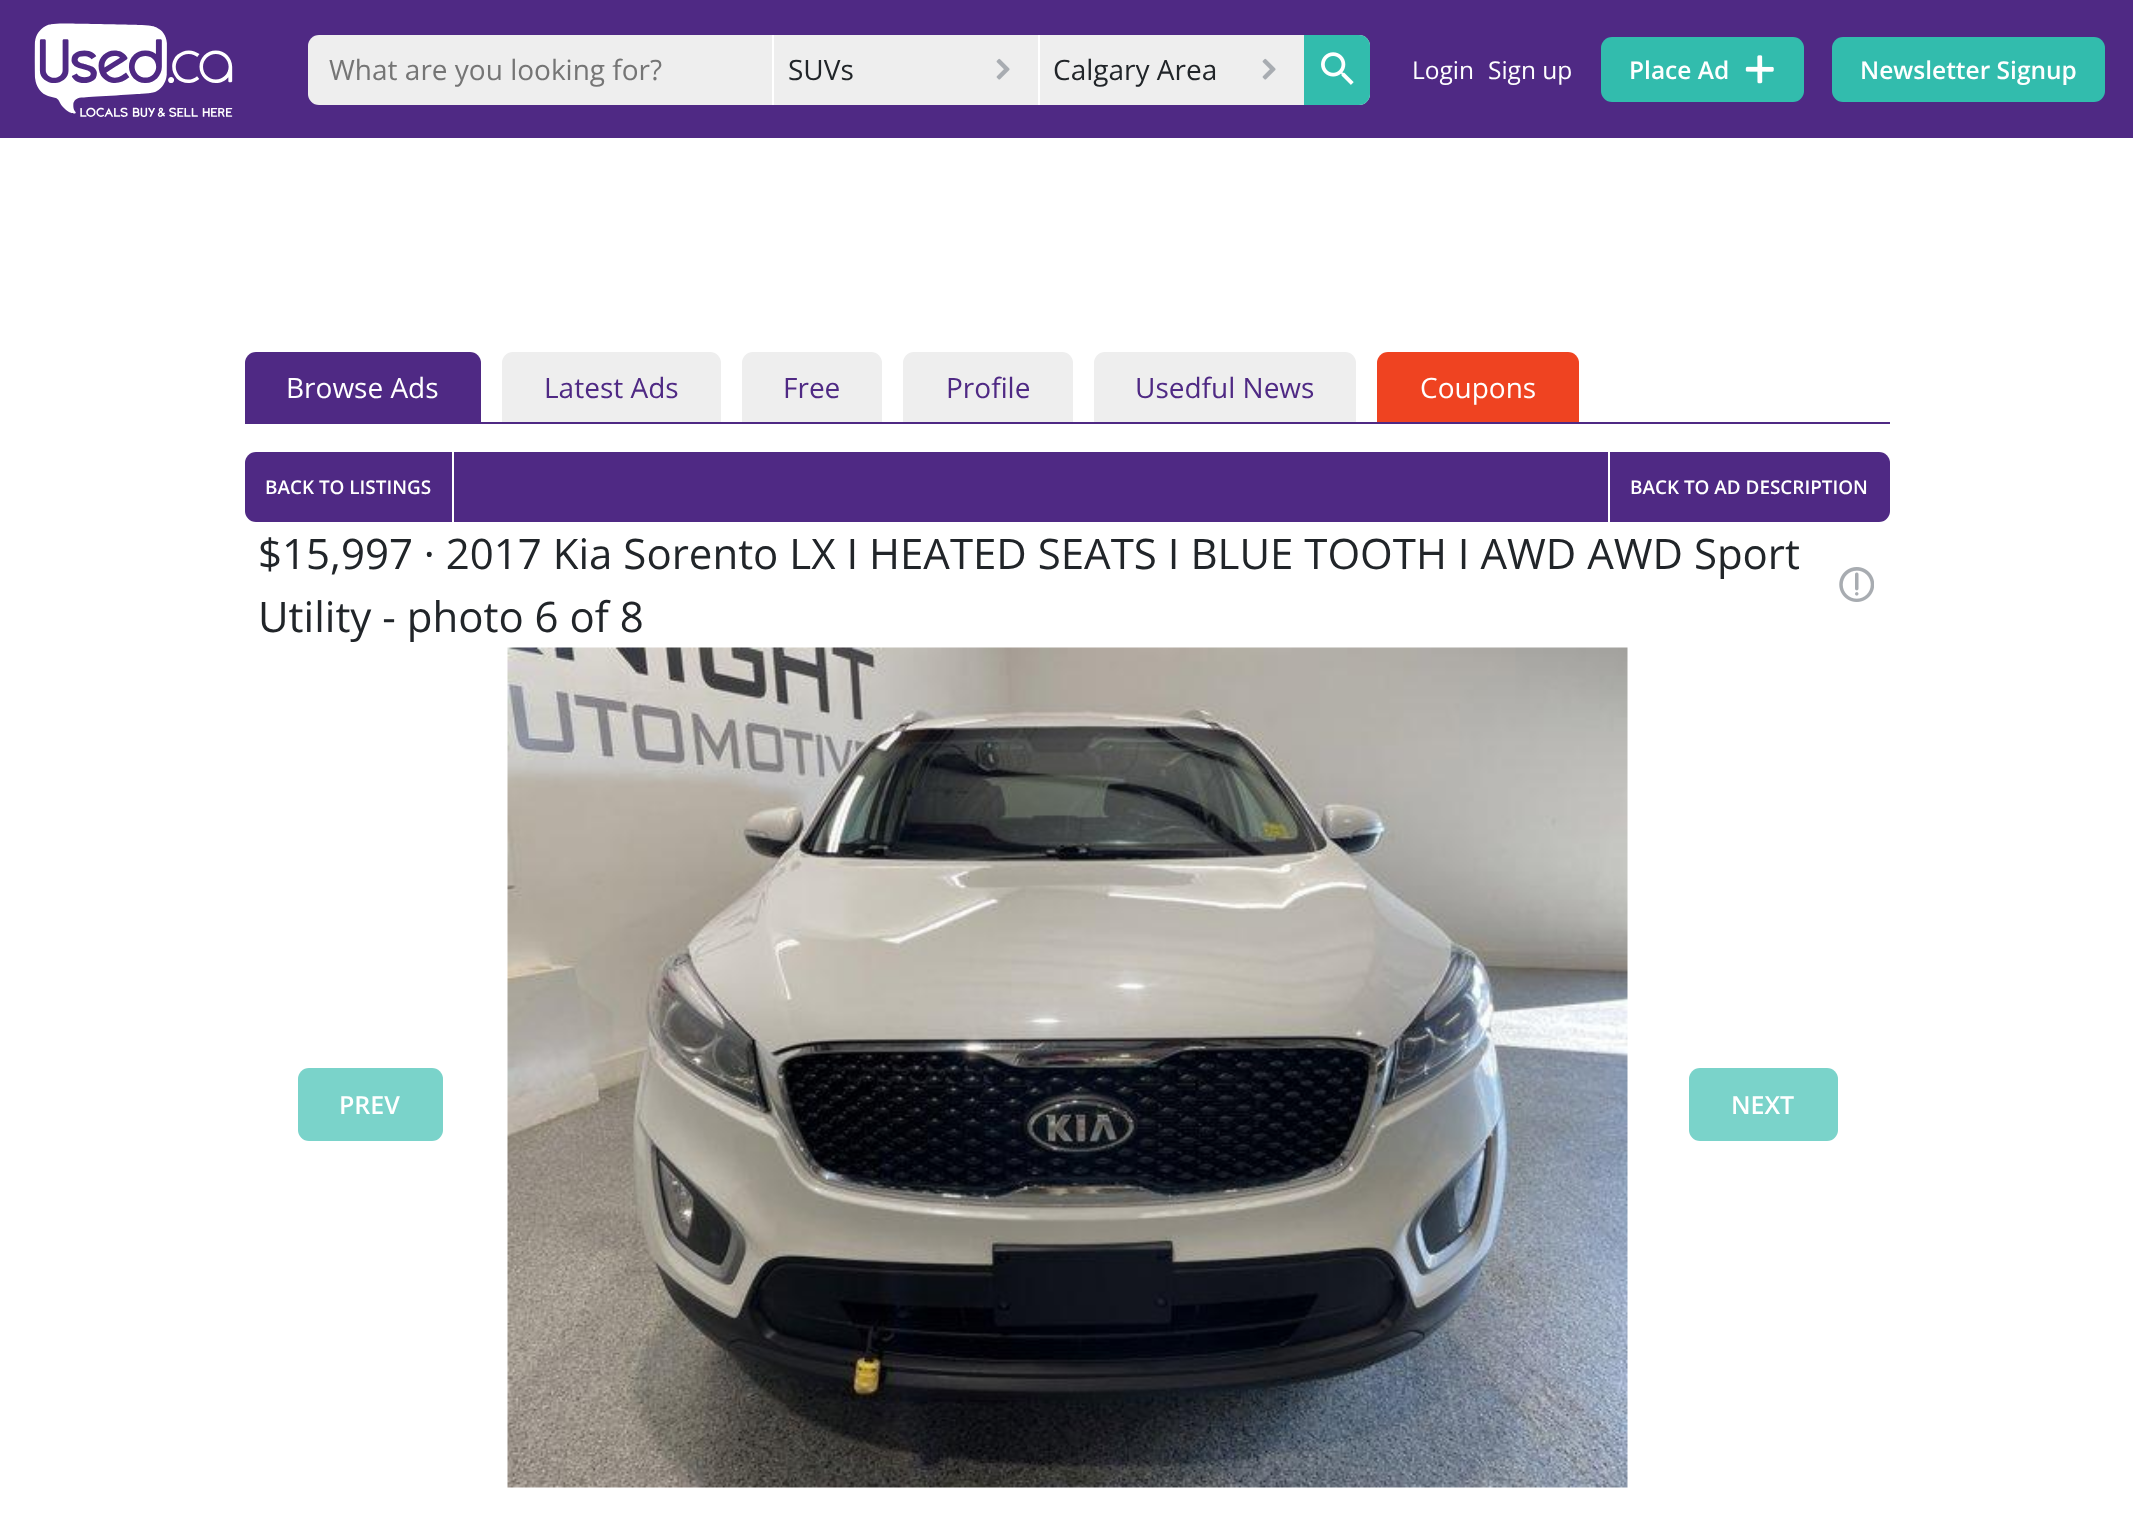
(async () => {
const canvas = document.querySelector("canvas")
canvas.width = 2133
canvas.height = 1514
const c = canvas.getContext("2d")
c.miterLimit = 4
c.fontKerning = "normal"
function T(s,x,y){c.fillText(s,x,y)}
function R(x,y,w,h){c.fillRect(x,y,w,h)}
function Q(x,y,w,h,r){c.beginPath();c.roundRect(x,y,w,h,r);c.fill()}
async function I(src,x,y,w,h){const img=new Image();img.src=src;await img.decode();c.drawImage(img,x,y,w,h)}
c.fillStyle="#fff"
R(0,0,2133,1514)
c.fillStyle="#4f2984"
R(0,0,2133,138)
await I("1.png",34,23,199,94)
c.fillStyle="#eee"
Q(308,35,1062,70,11)
c.font="28px Open Sans"
c.fillStyle="#757575"
T("What are you looking for?",329,80)
c.fillStyle="#fff"
R(772,35,2,70)
c.fillStyle="#212529"
T("SUVs",788,80)
await I("2.png",996,58,14,22)
c.fillStyle="#fff"
R(1038,35,2,70)
c.fillStyle="#212529"
T("Calgary Area",1053,80)
await I("2.png",1262,58,14,22)
c.fillStyle="#32bcad"
c.beginPath()
c.roundRect(1304,35,66,70,[0,11,11,0])
c.fill()
await I("3.png",1321,52,33,33)
c.font="24.5px Open Sans"
c.fillStyle="#fff"
T("Login",1412,79)
T("Sign up",1488,79)
c.fillStyle="#32bcad"
Q(1601,37,203,65,11)
c.font="600 24.5px Open Sans"
c.fillStyle="#fff"
T("Place Ad",1629,79)
await I("4.png",1745,55,29,29)
c.fillStyle="#32bcad"
Q(1832,37,273,65,11)
c.fillStyle="#fff"
T("Newsletter Signup",1860,79)
c.fillStyle="#4f2984"
R(245,422,1645,2)
c.beginPath()
c.roundRect(245,352,236,70,[11,11,0,0])
c.fill()
c.font="28px Open Sans"
c.fillStyle="#fff"
T("Browse Ads",286,398)
c.fillStyle="#eee"
c.beginPath()
c.roundRect(502,352,219,70,[11,11,0,0])
c.fill()
c.fillStyle="#4f2984"
T("Latest Ads",544,398)
c.fillStyle="#eee"
c.beginPath()
c.roundRect(742,352,140,70,[11,11,0,0])
c.fill()
c.fillStyle="#4f2984"
T("Free",783,398)
c.fillStyle="#eee"
c.beginPath()
c.roundRect(903,352,170,70,[11,11,0,0])
c.fill()
c.fillStyle="#4f2984"
T("Profile",946,398)
c.fillStyle="#eee"
c.beginPath()
c.roundRect(1094,352,262,70,[11,11,0,0])
c.fill()
c.fillStyle="#4f2984"
T("Usedful News",1135,398)
c.fillStyle="#ef4321"
c.beginPath()
c.roundRect(1377,352,202,70,[11,11,0,0])
c.fill()
c.fillStyle="#fff"
T("Coupons",1420,398)
c.fillStyle="#4f2984"
Q(245,452,1645,70,11)
c.fillStyle="#fff"
R(452,452,2,70)
c.font="600 18.9px Open Sans"
T("BACK TO LISTINGS",265,494)
R(1608,452,2,70)
T("BACK TO AD DESCRIPTION",1630,494)
c.font="42px Open Sans"
c.fillStyle="#212529"
T("$15,997 · 2017 Kia Sorento LX I HEATED SEATS I BLUE TOOTH I AWD AWD Sport",258,569)
T("Utility - photo 6 of 8",258,632)
await I("5.png",1839,567,35,35)
c.fillStyle="#7ad3ca"
Q(298,1068,145,73,11)
c.font="600 25px Open Sans"
c.fillStyle="#fff"
T("PREV",339,1114)
await I("6.png",507,647,1121,841)
c.fillStyle="#7ad3ca"
Q(1689,1068,149,73,11)
c.fillStyle="#fff"
T("NEXT",1731,1114)
})()
